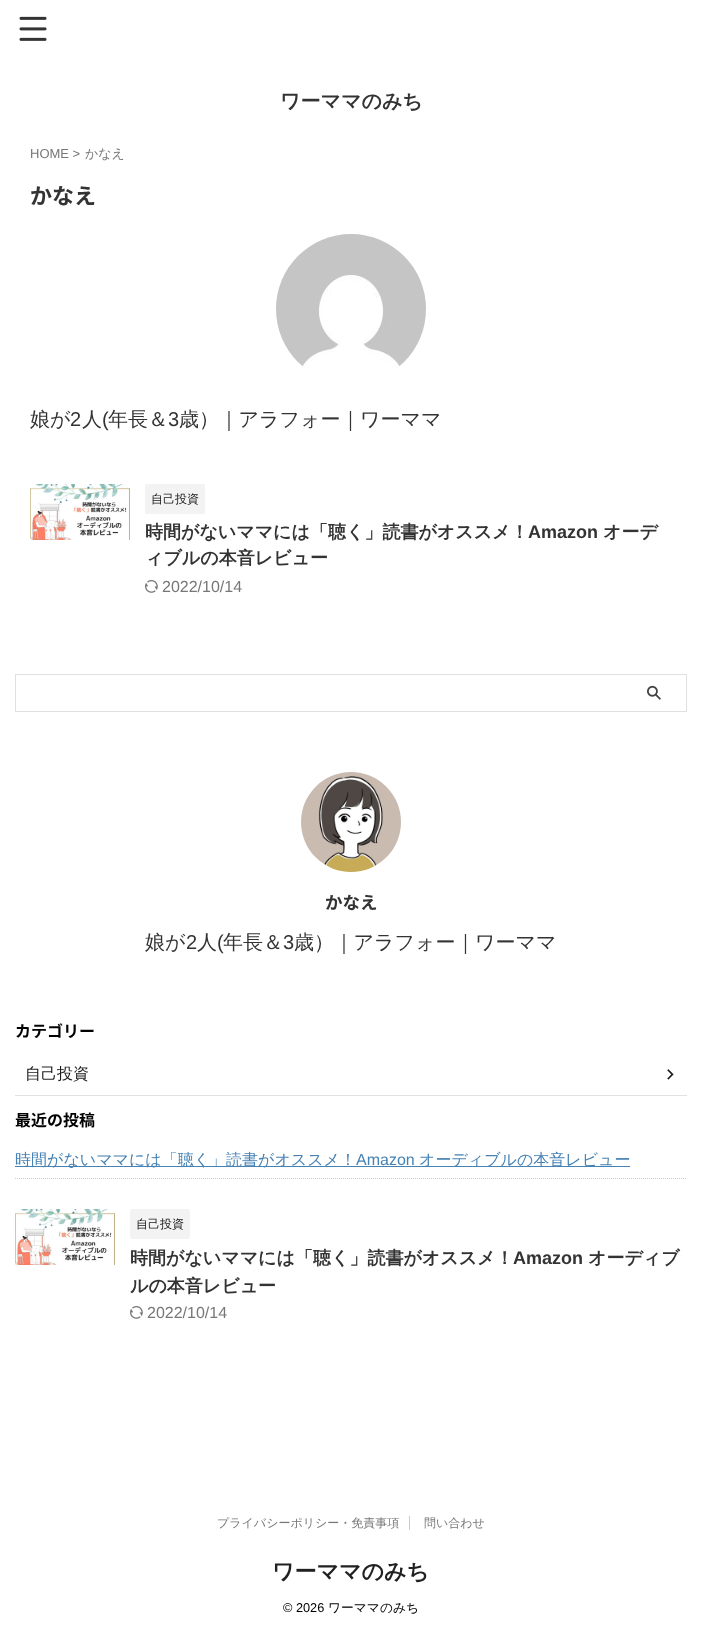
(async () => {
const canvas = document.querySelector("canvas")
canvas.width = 702
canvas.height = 1637
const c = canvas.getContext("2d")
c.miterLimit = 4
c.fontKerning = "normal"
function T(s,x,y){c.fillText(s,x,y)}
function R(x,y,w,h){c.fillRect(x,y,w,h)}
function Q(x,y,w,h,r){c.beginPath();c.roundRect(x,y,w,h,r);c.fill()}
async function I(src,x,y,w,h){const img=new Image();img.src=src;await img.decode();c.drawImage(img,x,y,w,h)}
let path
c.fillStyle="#fff"
R(0,0,702,1637)
await I("1.png",19,16,28,25)
c.font="bold 20px WenQuanYi Zen Hei"
c.fillStyle="#333"
T("ワーママのみち",280,108)
c.font="13px Liberation Sans"
c.fillStyle="#777"
T("HOME >",30,158)
c.font="500 13px WenQuanYi Zen Hei"
T("かなえ",85,158)
c.font="bold 22px Noto Sans JP"
c.fillStyle="#333"
T("かなえ",30,204)
await I("2.png",276,234,150,134)
c.font="500 20px WenQuanYi Zen Hei"
T("娘が",30,426)
c.font="20px Liberation Sans"
T("2",70,426)
c.font="500 20px WenQuanYi Zen Hei"
T("人",82,426)
c.font="20px Liberation Sans"
T("(",102,426)
c.font="500 20px WenQuanYi Zen Hei"
T("年長＆",108,426)
c.font="20px Liberation Sans"
T("3",168,426)
c.font="500 20px WenQuanYi Zen Hei"
T("歳）｜アラフォー｜ワーママ",179,426)
await I("3.png",30,484,100,56)
c.fillStyle="#f3f3f3"
Q(145,484,60,30,2)
c.font="500 12px WenQuanYi Zen Hei"
c.fillStyle="#1a1a1a"
T("自己投資",151,503)
c.font="bold 18px WenQuanYi Zen Hei"
c.fillStyle="#333"
T("時間がないママには「聴く」読書がオススメ！",145,538)
c.font="bold 18px Liberation Sans"
T("Amazon",528,538)
c.font="bold 18px WenQuanYi Zen Hei"
T("オーデ",603,538)
T("ィブルの本音レビュー",145,564)
await I("4.png",145,580,13,13)
c.font="16px Liberation Sans"
c.fillStyle="#777"
T("2022/10/14",162,592)
c.strokeStyle="#e0e0e0"
c.strokeRect(15.5,674.5,671,37)
await I("5.png",647,685,14,15)
await I("6.png",301,772,100,100)
c.font="bold 17.5px Noto Sans JP"
c.fillStyle="#333"
T("かなえ",325,909)
c.font="500 20px WenQuanYi Zen Hei"
T("娘が",145,949)
c.font="20px Liberation Sans"
T("2",186,949)
c.font="500 20px WenQuanYi Zen Hei"
T("人",197,949)
c.font="20px Liberation Sans"
T("(",217,949)
c.font="500 20px WenQuanYi Zen Hei"
T("年長＆",223,949)
c.font="20px Liberation Sans"
T("3",283,949)
c.font="500 20px WenQuanYi Zen Hei"
T("歳）｜アラフォー｜ワーママ",294,949)
c.font="bold 16px Noto Sans JP"
c.fillStyle="#000"
T("カテゴリー",15,1037)
c.fillStyle="#e1e1e1"
R(15,1095,672,1)
c.font="500 16px WenQuanYi Zen Hei"
c.fillStyle="#1a1a1a"
T("自己投資",25,1079)
await I("7.png",667,1069,7,11)
c.font="bold 16px Noto Sans JP"
c.fillStyle="#000"
T("最近の投稿",15,1126)
path = new Path2D("M15 1178.5h672")
c.strokeStyle="#ccc"
c.setLineDash([1,1])
c.stroke(path)
c.fillStyle="#4682b4"
R(15,1166,615,1)
c.font="500 16px WenQuanYi Zen Hei"
T("時間がないママには「聴く」読書がオススメ！",15,1165)
c.font="16px Liberation Sans"
T("Amazon",356,1165)
c.font="500 16px WenQuanYi Zen Hei"
T("オーディブルの本音レビュー",419,1165)
await I("3.png",15,1209,100,56)
c.fillStyle="#f3f3f3"
Q(130,1209,60,30,2)
c.font="500 12px WenQuanYi Zen Hei"
c.fillStyle="#1a1a1a"
T("自己投資",136,1228)
c.font="bold 18px WenQuanYi Zen Hei"
c.fillStyle="#333"
T("時間がないママには「聴く」読書がオススメ！",130,1264)
c.font="bold 18px Liberation Sans"
T("Amazon",513,1264)
c.font="bold 18px WenQuanYi Zen Hei"
T("オーディブ",588,1264)
T("ルの本音レビュー",130,1292)
await I("4.png",130,1306,13,13)
c.font="16px Liberation Sans"
c.fillStyle="#777"
T("2022/10/14",147,1318)
c.font="500 12px WenQuanYi Zen Hei"
T("プライバシーポリシー・免責事項",217,1527)
c.fillStyle="#ccc"
R(409,1516,1,14)
c.fillStyle="#777"
T("問い合わせ",424,1527)
c.font="bold 22px WenQuanYi Zen Hei"
c.fillStyle="#212121"
T("ワーママのみち",272,1579)
c.font="12.75px Liberation Sans"
c.fillStyle="#000"
T("© 2026",283,1612)
c.font="500 12.75px WenQuanYi Zen Hei"
T("ワーママのみち",328,1612)
})()
